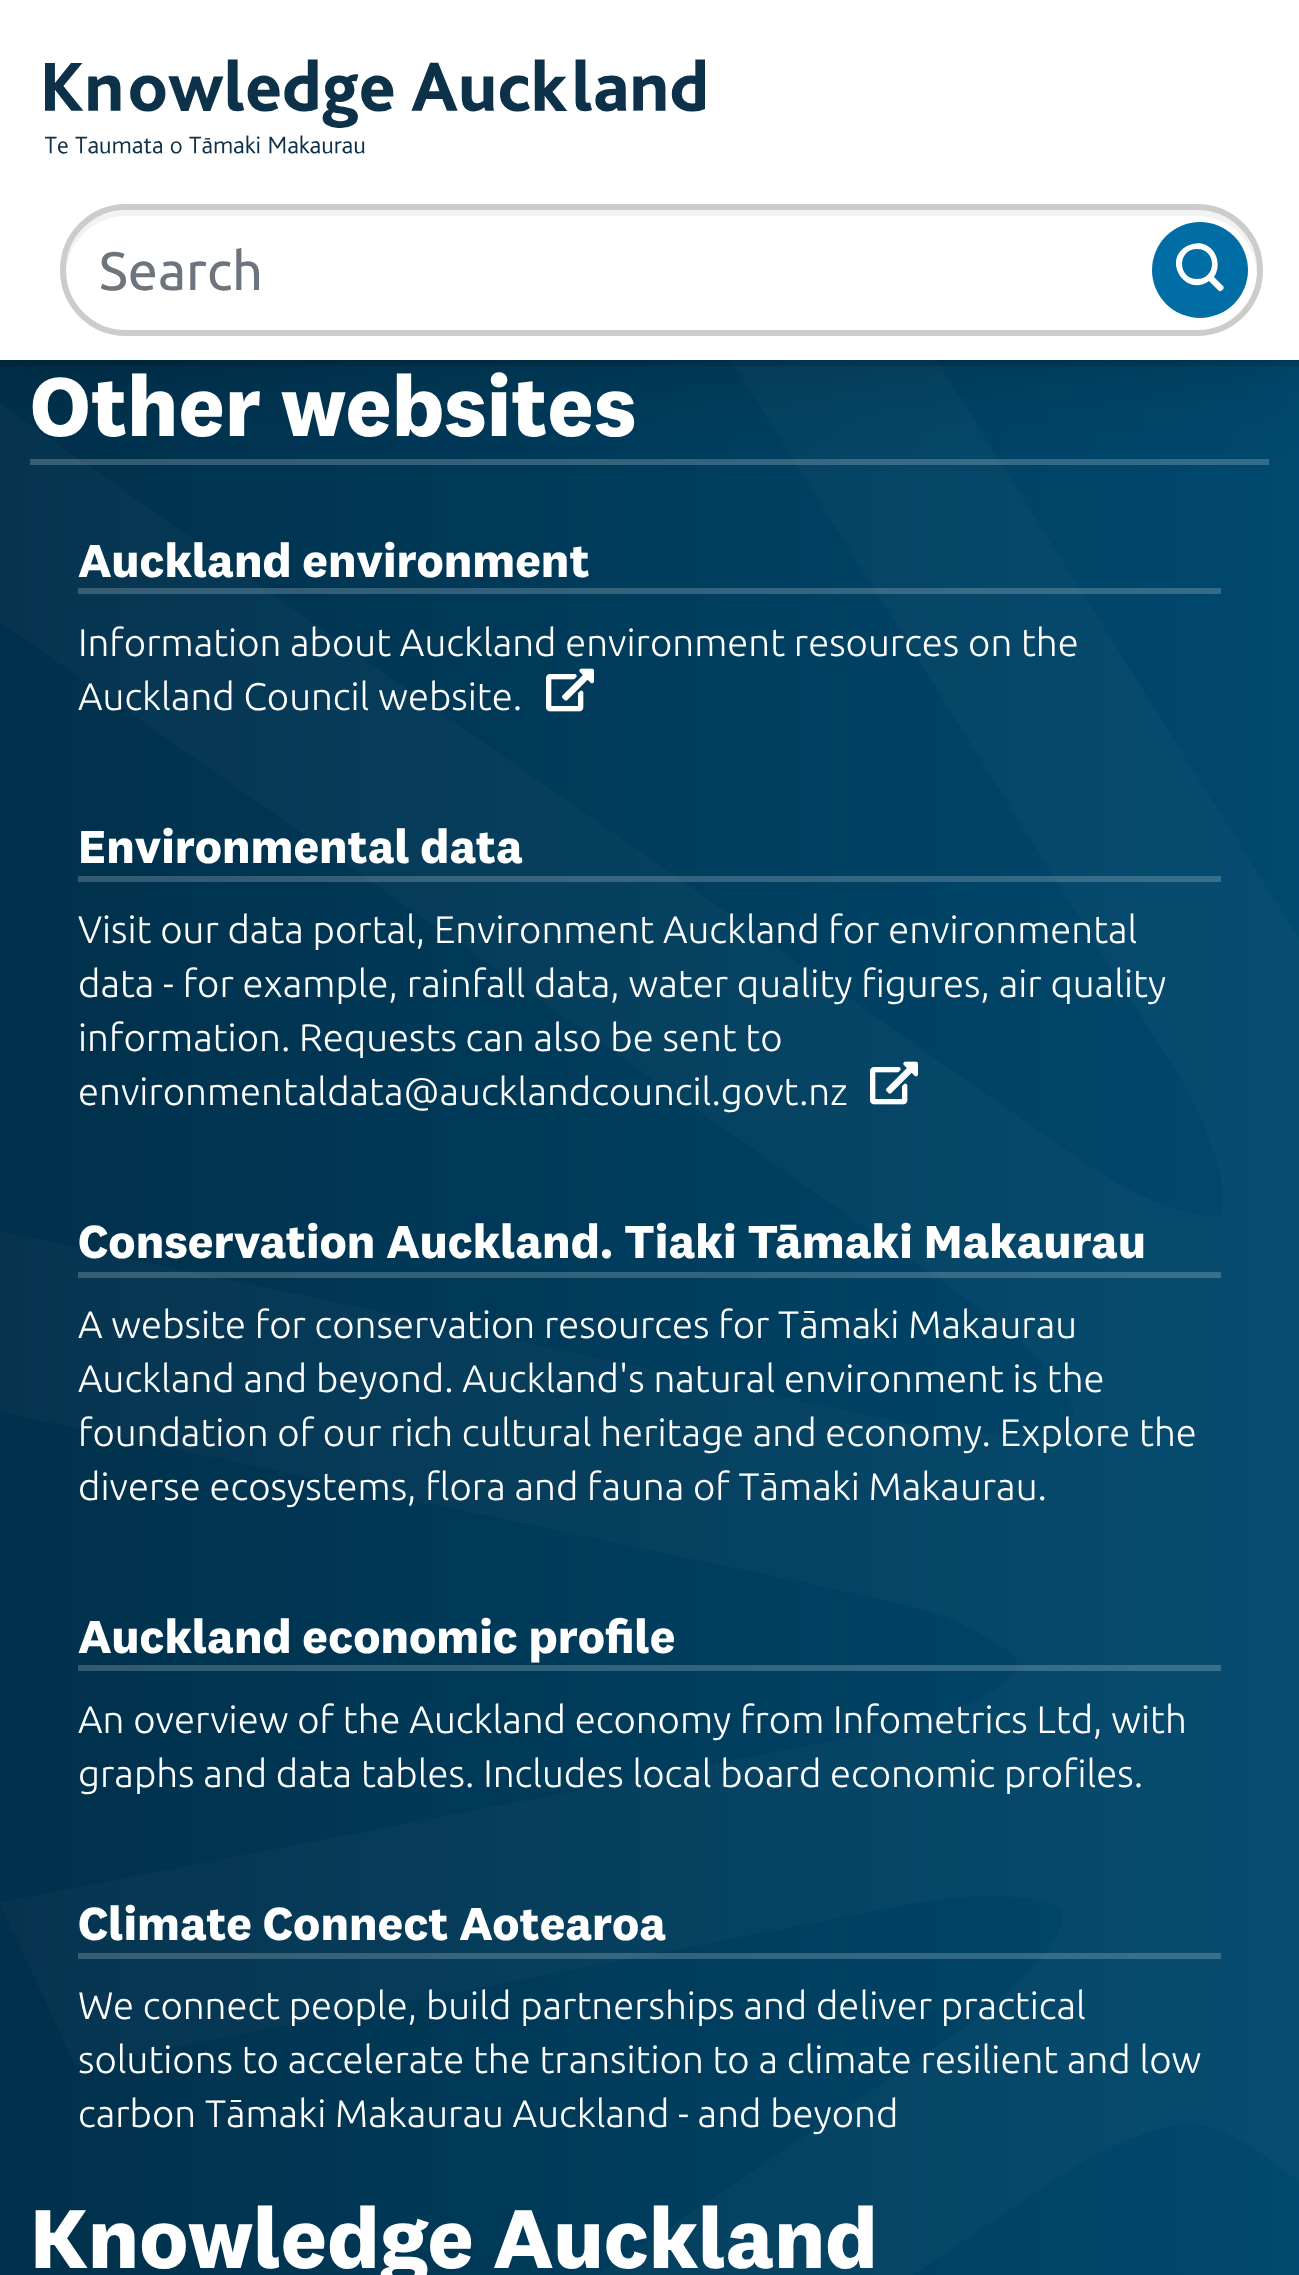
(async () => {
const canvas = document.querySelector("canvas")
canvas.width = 1299
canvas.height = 2275
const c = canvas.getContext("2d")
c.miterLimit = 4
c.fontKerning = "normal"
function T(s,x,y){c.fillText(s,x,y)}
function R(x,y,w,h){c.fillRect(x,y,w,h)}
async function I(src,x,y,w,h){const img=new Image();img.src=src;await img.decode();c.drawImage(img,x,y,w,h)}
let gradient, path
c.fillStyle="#fff"
R(0,0,1299,2275)
gradient = c.createLinearGradient(0,2160,1299,2160)
gradient.addColorStop(0,"#00304b")
gradient.addColorStop(1,"#01496e")
c.fillStyle = gradient
R(0,360,1299,1915)
await I("2.png",0,360,1299,1915)
c.fillStyle="#ffffff33"
R(30,459,1239,6)
c.fillStyle="#00000038"
c.filter="blur(45px)"
c.beginPath()
c.rect(0,0,1299,360)
c.fill()
c.filter="none"
c.fillStyle="#00000024"
R(0,360,1299,6)
c.fillStyle="#fff"
R(0,0,1299,360)
await I("1.png",45,59,660,95)
c.fillStyle="#f2f2f2"
path = new Path2D("M126 216h1071c32 0 58 25 60 57c2-34-26-63-60-63h-1071c-34 0-62 29-60 63c2-32 28-57 60-57z")
c.fill(path)
c.beginPath()
c.roundRect(63,207,1197,126,63)
c.strokeStyle="#ccc"
c.lineWidth=6
c.stroke()
c.font="54px Ubuntu"
c.fillStyle="#6c757d"
T("Search",99,290)
c.fillStyle="#006da4"
c.beginPath()
c.arc(1200,270,48,0,7)
c.fill()
c.fillStyle="#fff"
path = new Path2D("M1223 286l-9-9c7-10 4-26-8-32c-6-3-13-2-19 1c-26 14-1 52 22 35l10 10c3 1 6-3 4-5zm-26-7c-20 0-20-30 0-30c20 0 20 30 0 30z")
c.fill(path)
c.font="bold 86.5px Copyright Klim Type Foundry"
T("Other websites",30,436)
c.fillStyle="#ffffff33"
R(78,588,1143,6)
c.font="bold 48px Copyright Klim Type Foundry"
c.fillStyle="#fff"
T("Auckland environment",78,577)
c.font="300 38.4px Ubuntu"
T("Information about Auckland environment resources on the",78,656)
T("Auckland Council website.",78,710)
await I("3.png",546,668,48,44)
c.fillStyle="#ffffff33"
R(78,876,1143,6)
c.font="bold 48px Copyright Klim Type Foundry"
c.fillStyle="#fff"
T("Environmental data",78,863)
c.font="300 38.4px Ubuntu"
T("Visit our data portal, Environment Auckland for environmental",78,943)
T("data - for example, rainfall data, water quality figures, air quality",78,997)
T("information. Requests can also be sent to",78,1051)
T("environmentaldata@aucklandcouncil.govt.nz",78,1105)
await I("4.png",870,1061,48,44)
c.fillStyle="#ffffff33"
R(78,1272,1143,6)
c.font="bold 48px Copyright Klim Type Foundry"
c.fillStyle="#fff"
T("Conservation Auckland. Tiaki Tāmaki Makaurau",78,1258)
c.font="300 38.4px Ubuntu"
T("A website for conservation resources for Tāmaki Makaurau",78,1338)
T("Auckland and beyond. Auckland's natural environment is the",78,1392)
T("foundation of our rich cultural heritage and economy. Explore the",78,1446)
T("diverse ecosystems, flora and fauna of Tāmaki Makaurau.",78,1500)
c.fillStyle="#ffffff33"
R(78,1665,1143,6)
c.font="bold 48px Copyright Klim Type Foundry"
c.fillStyle="#fff"
T("Auckland economic profile",78,1653)
c.font="300 38.4px Ubuntu"
T("An overview of the Auckland economy from Infometrics Ltd, with",78,1733)
T("graphs and data tables. Includes local board economic profiles.",78,1787)
c.fillStyle="#ffffff33"
R(78,1953,1143,6)
c.font="bold 48px Copyright Klim Type Foundry"
c.fillStyle="#fff"
T("Climate Connect Aotearoa",78,1940)
c.font="300 38.4px Ubuntu"
T("We connect people, build partnerships and deliver practical",78,2019)
T("solutions to accelerate the transition to a climate resilient and low",78,2073)
T("carbon Tāmaki Makaurau Auckland - and beyond",78,2127)
c.font="bold 86.5px Copyright Klim Type Foundry"
T("Knowledge Auckland",30,2268)
})()
